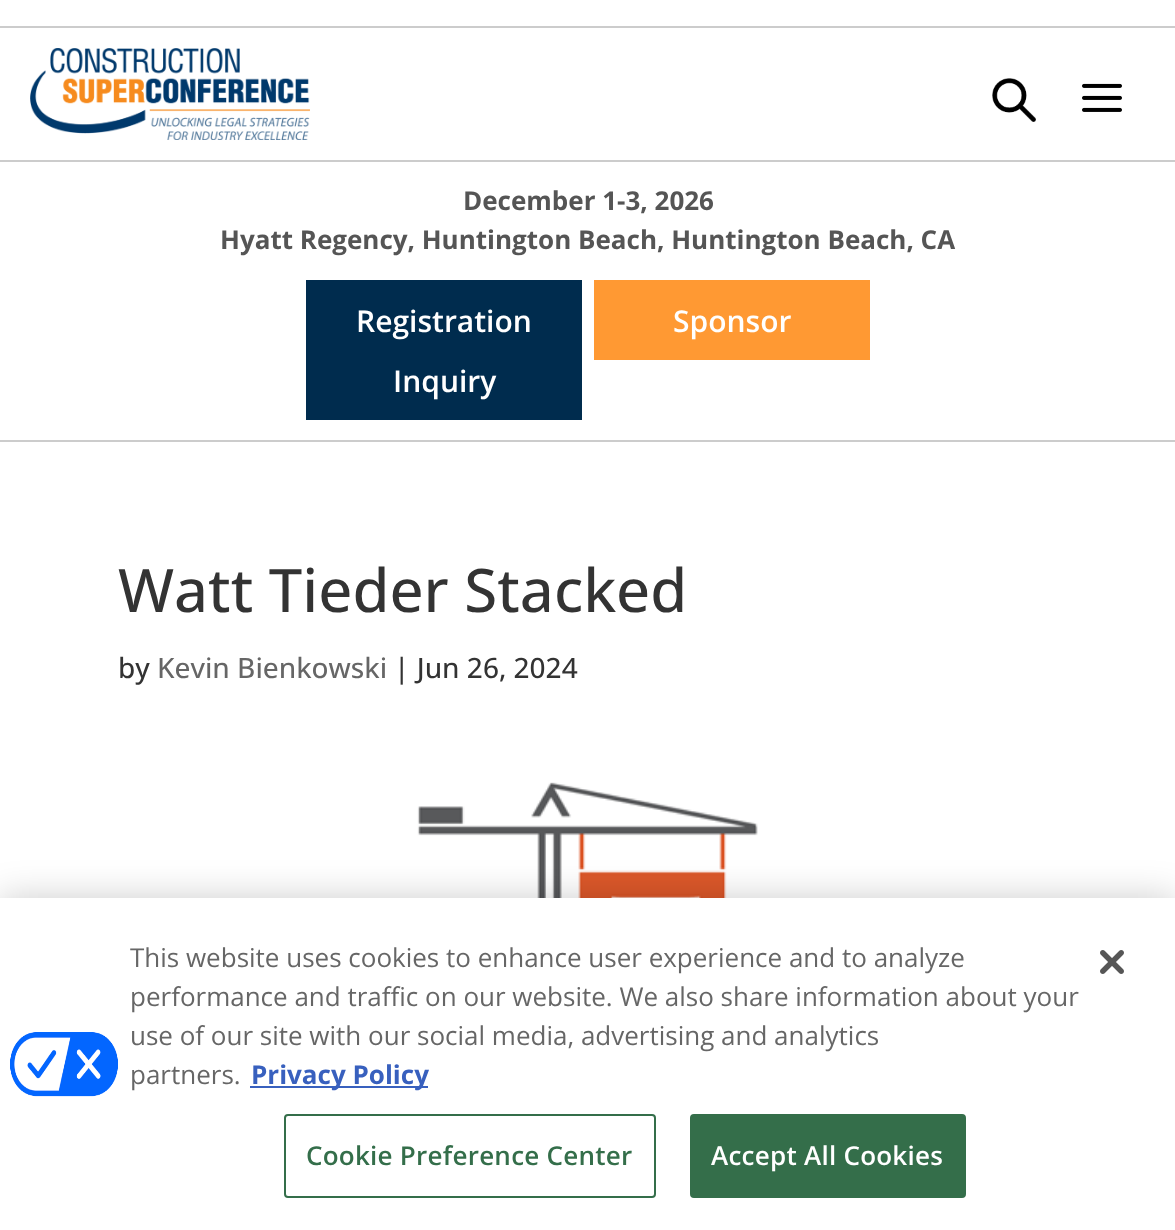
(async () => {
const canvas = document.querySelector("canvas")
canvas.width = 1175
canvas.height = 1230
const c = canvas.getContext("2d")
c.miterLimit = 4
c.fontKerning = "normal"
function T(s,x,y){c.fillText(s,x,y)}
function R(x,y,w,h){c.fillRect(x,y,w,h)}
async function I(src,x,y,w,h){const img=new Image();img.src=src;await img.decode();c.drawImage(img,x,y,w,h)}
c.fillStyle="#fff"
R(0,0,1175,1230)
c.fillStyle="#ccc"
R(0,440,1175,2)
R(0,26,1175,2)
R(0,160,1175,2)
await I("1.png",30,48,280,92)
await I("2.png",1082,83,40,29)
await I("3.png",992,78,44,44)
c.font="bold 26px Open Sans"
c.fillStyle="#555"
T("December 1-3, 2026",463,210)
T("Hyatt Regency, Huntington Beach, Huntington Beach, CA",220,249)
c.fillStyle="#002c4e"
R(306,280,276,140)
c.font="600 30px Open Sans"
c.fillStyle="#fff"
T("Registration",356,332)
T("Inquiry",393,392)
c.fillStyle="#f93"
R(594,280,276,80)
c.fillStyle="#fff"
T("Sponsor",673,332)
c.font="500 60px Open Sans"
c.fillStyle="#333"
T("Watt Tieder Stacked",118,612)
c.font="500 28px Open Sans"
T("by",118,678)
c.fillStyle="#666"
T("Kevin Bienkowski",157,678)
c.fillStyle="#333"
T("| Jun 26, 2024",394,678)
await I("4.png",146,782,891,116)
c.fillStyle="#00000033"
c.filter="blur(18px)"
c.beginPath()
c.rect(0,898,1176,332)
c.fill()
c.filter="none"
c.fillStyle="#fff"
R(0,898,1175,332)
await I("5.png",10,1032,108,65)
c.font="26px Open Sans"
c.fillStyle="#666"
T("This website uses cookies to enhance user experience and to analyze",130,967)
T("performance and traffic on our website. We also share information about your",130,1006)
T("use of our site with our social media, advertising and analytics",130,1045)
T("partners.",130,1084)
c.fillStyle="#3860be"
R(250,1086,178,2)
c.font="bold 26px Open Sans"
T("Privacy Policy",251,1084)
c.beginPath()
c.roundRect(285,1115,370,82,3)
c.strokeStyle="#346e4a"
c.lineWidth=2
c.stroke()
c.letterSpacing="0.25px"
c.font="600 26px Open Sans"
c.fillStyle="#346e4a"
T("Cookie Preference Center",306,1165)
c.beginPath()
c.roundRect(691,1115,274,82,3)
c.fill()
c.stroke()
c.fillStyle="#fff"
T("Accept All Cookies",711,1165)
await I("6.png",1100,950,24,24)
})()
